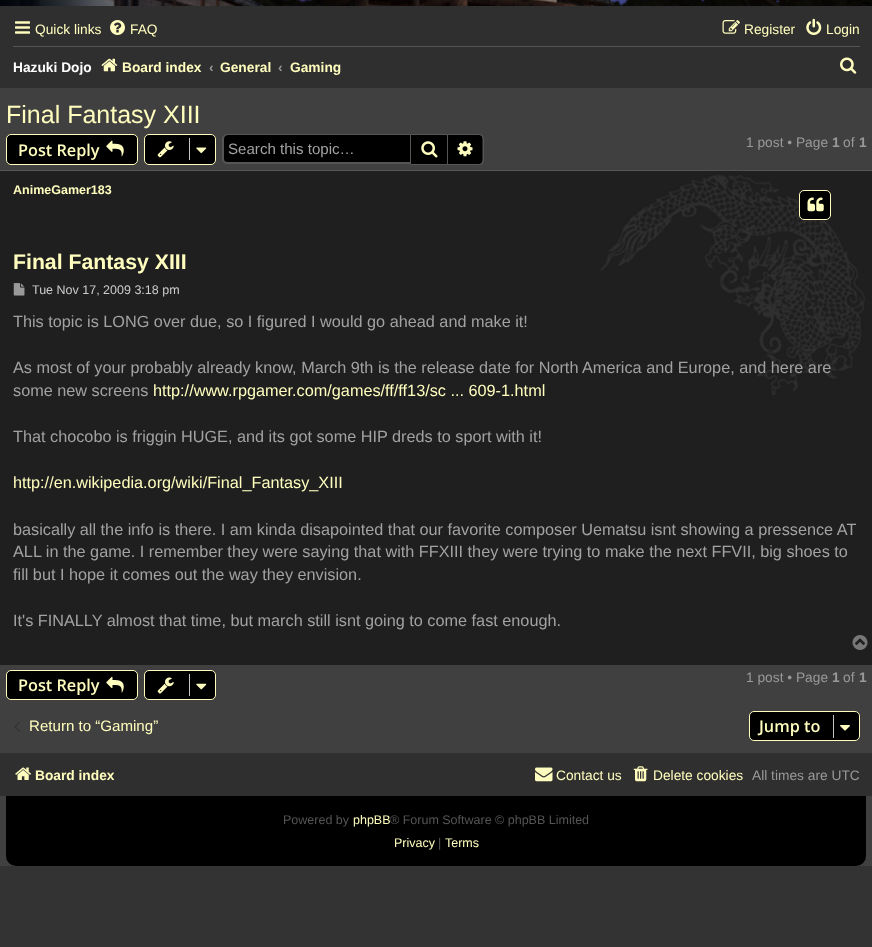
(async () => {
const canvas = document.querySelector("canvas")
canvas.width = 872
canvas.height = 947
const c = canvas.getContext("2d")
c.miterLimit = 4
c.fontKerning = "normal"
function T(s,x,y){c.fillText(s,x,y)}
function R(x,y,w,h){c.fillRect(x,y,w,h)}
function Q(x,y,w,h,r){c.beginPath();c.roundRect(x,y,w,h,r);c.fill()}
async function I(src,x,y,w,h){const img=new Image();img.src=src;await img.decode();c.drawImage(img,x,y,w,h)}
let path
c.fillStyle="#333"
R(0,0,872,947)
c.fillStyle="#404040"
R(0,88,872,778)
await I("1.png",0,0,872,6)
c.fillStyle="#302f2f"
R(0,6,872,82)
await I("2.png",15,21,15,13)
c.font="13.75px Liberation Sans"
c.fillStyle="#fffebe"
T("Quick links",35,34)
await I("3.png",110,20,15,15)
T("FAQ",130,34)
await I("4.png",722,20,18,14)
T("Register",744,34)
await I("5.png",806,18,16,17)
T("Login",826,34)
c.fillStyle="#555"
R(13,46,847,1)
c.font="bold 13.75px Liberation Sans"
c.fillStyle="#fff"
T("Hazuki Dojo",13,72)
await I("6.png",101,58,17,14)
c.fillStyle="#fffebe"
T("Board index",122,72)
c.fillStyle="#999"
T("‹",209,72)
c.fillStyle="#fffebe"
T("General",220,72)
c.fillStyle="#999"
T("‹",278,72)
c.fillStyle="#fffebe"
T("Gaming",290,72)
await I("7.png",840,57,17,17)
c.font="25px Liberation Sans"
T("Final Fantasy XIII",6,123)
c.fillStyle="#000"
c.beginPath()
c.roundRect(6.5,134.5,131,30,4.5)
c.fill()
c.strokeStyle="#fffebe"
c.stroke()
c.font="600 16.25px Open Sans"
c.fillStyle="#fffebe"
T("Post Reply",18,156)
await I("8.png",106,140,18,17)
c.fillStyle="#000"
c.beginPath()
c.roundRect(144.5,134.5,71,30,4.5)
c.fill()
c.stroke()
await I("9.png",157,141,17,17)
c.fillStyle="#c7c3bf"
R(189,138,1,22)
await I("10.png",196,147,11,7)
c.fillStyle="#000"
c.beginPath()
c.roundRect(224,135,186,28,[4,0,0,4])
c.fill()
c.fillStyle="#555"
path = new Path2D("M228 134h182v30h-182c-3 0-6-2-6-5v-20c0-3 3-5 6-5zm0 1h182v27h-182c-3 0-4-1-4-3v-20c0-2 1-4 4-4z")
c.fill(path,"evenodd")
c.font="15.1px Liberation Sans"
c.fillStyle="#a2a2a2"
T("Search this topic…",228,154)
c.fillStyle="#000"
c.beginPath()
c.rect(410.5,134.5,37,30)
c.fill()
c.strokeStyle="#555"
c.stroke()
await I("11.png",421,141,17,17)
c.beginPath()
c.roundRect(448,135,35,29,[0,4,4,0])
c.fill()
c.fillStyle="#555"
path = new Path2D("M447.5 134h31.5c2.5 0 5 2 5 5v21c0 3-2.5 5-5 5h-31.5zm0 1h31.5c2 0 3.5 1.5 3.5 4v21c0 2-1.5 4-3.5 4h-31.5z")
c.fill(path,"evenodd")
await I("12.png",457,141,16,16)
c.font="13.75px Liberation Sans"
c.fillStyle="#999"
T("1 post • Page",746,147)
c.font="bold 13.75px Liberation Sans"
T("1",832,147)
c.font="13.75px Liberation Sans"
T("of",843,147)
c.font="bold 13.75px Liberation Sans"
T("1",859,147)
c.fillStyle="#1f1f1f"
R(0,171,872,494)
await I("13.png",600,175,265,220)
c.fillStyle="#555"
R(0,170,872,1)
c.font="bold 12.5px Liberation Sans"
c.fillStyle="#fffebe"
T("AnimeGamer183",13,194)
c.fillStyle="#000"
c.beginPath()
c.roundRect(799.5,190.5,31,29,4.5)
c.fill()
c.strokeStyle="#fffebe"
c.stroke()
await I("14.png",807,197,17,15)
c.font="bold 21.25px Liberation Sans"
c.fillStyle="#fffebe"
T("Final Fantasy XIII",13,269)
await I("15.png",13,283,12,13)
c.font="12.5px Liberation Sans"
c.fillStyle="#ccc"
T("Tue Nov 17, 2009 3:18 pm",32,294)
c.font="16.25px Liberation Sans"
c.fillStyle="#a2a2a2"
T("This topic is LONG over due, so I figured I would go ahead and make it!",13,327)
T("As most of your probably already know, March 9th is the release date for North America and Europe, and here are",13,373)
T("some new screens",13,396)
c.fillStyle="#fffebe"
T("http://www.rpgamer.com/games/ff/ff13/sc ... 609-1.html",153,396)
c.fillStyle="#a2a2a2"
T("That chocobo is friggin HUGE, and its got some HIP dreds to sport with it!",13,442)
c.fillStyle="#fffebe"
T("http://en.wikipedia.org/wiki/Final_Fantasy_XIII",13,488)
c.fillStyle="#a2a2a2"
T("basically all the info is there. I am kinda disapointed that our favorite composer Uematsu isnt showing a pressence AT",13,535)
T("ALL in the game. I remember they were saying that with FFXIII they were trying to make the next FFVII, big shoes to",13,557)
T("fill but I hope it comes out the way they envision.",13,580)
T("It's FINALLY almost that time, but march still isnt going to come fast enough.",13,626)
await I("16.png",852,635,16,15)
c.fillStyle="#000"
c.beginPath()
c.roundRect(6.5,670.5,131,29,4.5)
c.fill()
c.stroke()
c.font="600 16.25px Open Sans"
c.fillStyle="#fffebe"
T("Post Reply",18,691)
await I("17.png",106,676,18,17)
c.fillStyle="#000"
c.beginPath()
c.roundRect(144.5,670.5,71,29,4.5)
c.fill()
c.stroke()
await I("18.png",157,677,17,17)
c.fillStyle="#c7c3bf"
R(189,674,1,22)
await I("19.png",196,683,11,7)
c.font="13.75px Liberation Sans"
c.fillStyle="#999"
T("1 post • Page",746,682)
c.font="bold 13.75px Liberation Sans"
T("1",832,682)
c.font="13.75px Liberation Sans"
T("of",843,682)
c.font="bold 13.75px Liberation Sans"
T("1",859,682)
await I("20.png",14,722,6,10)
c.font="15.1px Liberation Sans"
c.fillStyle="#fffebe"
T("Return to “Gaming”",29,731)
c.fillStyle="#000"
c.beginPath()
c.roundRect(749.5,711.5,110,29,4.5)
c.fill()
c.stroke()
c.font="600 16.25px Open Sans"
c.fillStyle="#fffebe"
T("Jump to",759,732)
c.fillStyle="#c7c3bf"
R(833,715,1,23)
await I("21.png",840,725,10,6)
c.fillStyle="#000"
Q(6,753,860,113,10)
c.fillStyle="#302f2f"
R(0,753,872,43)
await I("22.png",15,767,16,13)
c.font="bold 13.75px Liberation Sans"
c.fillStyle="#fffebe"
T("Board index",35,780)
await I("23.png",535,767,18,15)
c.font="13.75px Liberation Sans"
T("Contact us",556,780)
await I("24.png",633,766,15,16)
T("Delete cookies",653,780)
c.fillStyle="#999"
T("All times are UTC",752,780)
c.font="12.5px Liberation Sans"
c.fillStyle="#555"
T("Powered by",283,824)
c.fillStyle="#fffebe"
T("phpBB",353,824)
c.fillStyle="#555"
T("® Forum Software © phpBB Limited",390,824)
c.fillStyle="#fffebe"
T("Privacy",394,847)
c.fillStyle="#555"
T("|",438,847)
c.fillStyle="#fffebe"
T("Terms",445,847)
})()
